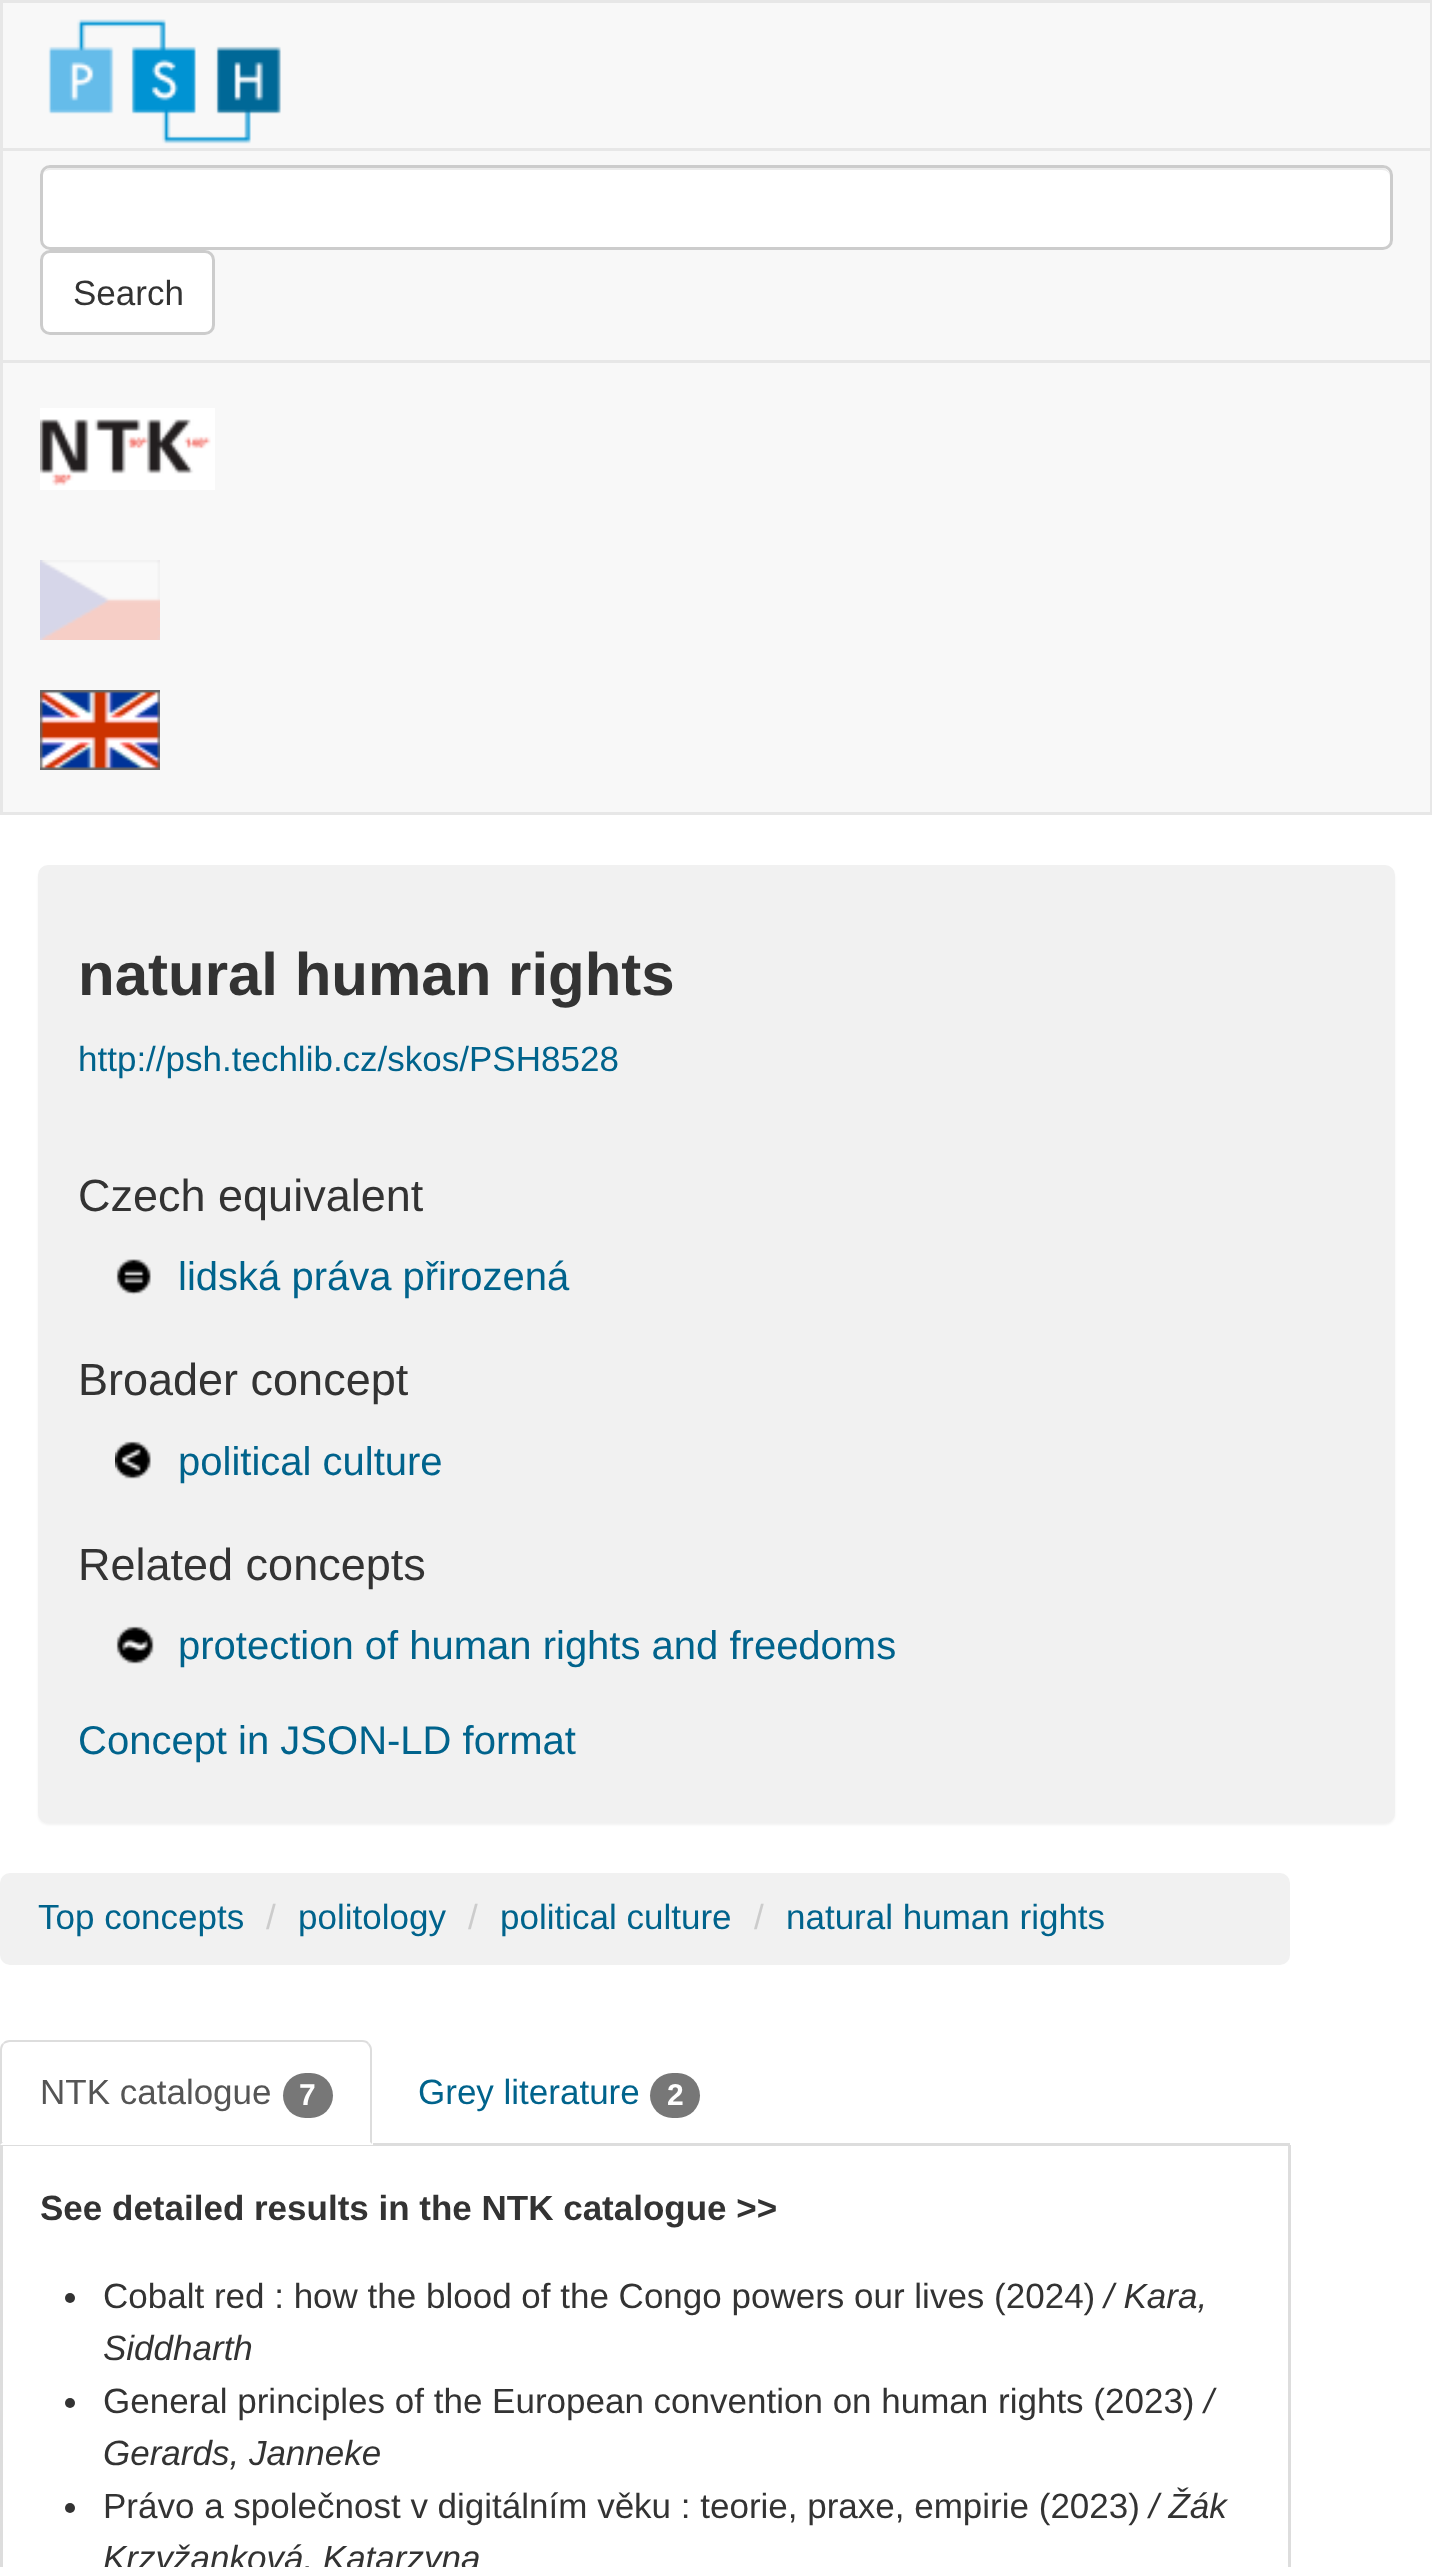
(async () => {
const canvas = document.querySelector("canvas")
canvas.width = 1432
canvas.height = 2567
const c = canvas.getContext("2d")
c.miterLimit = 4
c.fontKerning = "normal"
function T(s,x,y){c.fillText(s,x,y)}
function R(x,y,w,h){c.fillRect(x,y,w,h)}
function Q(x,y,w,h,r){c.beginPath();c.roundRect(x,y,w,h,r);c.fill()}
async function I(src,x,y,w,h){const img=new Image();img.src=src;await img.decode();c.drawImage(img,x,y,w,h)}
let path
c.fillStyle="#fff"
R(0,0,1432,2567)
c.fillStyle="#f8f8f8"
c.beginPath()
c.rect(1.5,1.5,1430,812)
c.fill()
c.strokeStyle="#e7e7e7"
c.lineWidth=3
c.stroke()
await I("1.png",48,19,233,125)
c.fillStyle="#e7e7e7"
R(3,148,1427,3)
R(3,360,1427,3)
c.fillStyle="#fff"
Q(40,165,1353,85,10)
c.fillStyle="#ececec"
path = new Path2D("M50 170h1332c5 0 8 3 8 8v-2c0-4-4-8-8-8h-1331c-3 0-6 2-8 5c2-2 5-3 7-3z")
c.fill(path)
c.beginPath()
c.roundRect(41.5,166.5,1350,82,8.5)
c.strokeStyle="#ccc"
c.stroke()
c.fillStyle="#fff"
c.beginPath()
c.roundRect(41.5,251.5,172,82,8.5)
c.fill()
c.stroke()
c.font="35px Liberation Sans"
c.fillStyle="#333"
T("Search",73,305)
await I("2.png",40,408,175,82)
await I("3.png",40,560,120,80)
await I("4.png",40,690,120,80)
c.fillStyle="#0000000d"
c.filter="blur(1px)"
c.beginPath()
c.roundRect(38,868,1357,957,10)
c.fill()
c.filter="none"
c.fillStyle="#f1f1f1"
Q(38,865,1357,958,10)
c.font="bold 60px Liberation Sans"
c.fillStyle="#333"
T("natural human rights",78,995)
c.font="35px Liberation Sans"
c.fillStyle="#00638c"
T("http://psh.techlib.cz/skos/PSH8528",78,1071)
c.font="45px Liberation Sans"
c.fillStyle="#333"
T("Czech equivalent",78,1211)
await I("5.png",116,1259,35,36)
c.font="40px Liberation Sans"
c.fillStyle="#00638c"
T("lidská práva přirozená",178,1290)
c.font="45px Liberation Sans"
c.fillStyle="#333"
T("Broader concept",78,1395)
await I("6.png",115,1441,36,38)
c.font="40px Liberation Sans"
c.fillStyle="#00638c"
T("political culture",178,1475)
c.font="45px Liberation Sans"
c.fillStyle="#333"
T("Related concepts",78,1580)
await I("7.png",116,1626,38,38)
c.font="40px Liberation Sans"
c.fillStyle="#00638c"
T("protection of human rights and freedoms",178,1659)
T("Concept in JSON-LD format",78,1754)
c.fillStyle="#f1f1f1"
Q(0,1873,1290,92,10)
c.font="35px Liberation Sans"
c.fillStyle="#00638c"
T("Top concepts",38,1929)
c.fillStyle="#ccc"
T("/",266,1929)
c.fillStyle="#00638c"
T("politology",298,1929)
c.fillStyle="#ccc"
T("/",468,1929)
c.fillStyle="#00638c"
T("political culture",500,1929)
c.fillStyle="#ccc"
T("/",754,1929)
c.fillStyle="#00638c"
T("natural human rights",786,1929)
c.fillStyle="#ddd"
R(0,2143,1290,3)
c.fillStyle="#fff"
c.beginPath()
c.roundRect(0,2040,373,105,[10,10,0,0])
c.fill()
c.fillStyle="#ddd"
path = new Path2D("M10 2040c-3 0-6 1-7 3l1 1c2-1 4-2 6-2h352c3 0 5 1 6 3l1-2c-1-2-4-3-7-3z")
c.fill(path)
path = new Path2D("M369 2043c2 2 3 4 3 7v94l-2-2v-92c0-2-1-4-2-5z")
c.fill(path)
path = new Path2D("M0 2145l3-3h-1v-92c0-2 1-4 2-6l-1-1c-2 1-3 4-3 7z")
c.fill(path)
c.fillStyle="#555"
T("NTK catalogue",40,2104)
c.fillStyle="#777"
Q(283,2073,50,45,22.5)
c.font="bold 30px Liberation Sans"
c.fillStyle="#fff"
T("7",299,2105)
c.font="35px Liberation Sans"
c.fillStyle="#00638c"
T("Grey literature",418,2104)
c.fillStyle="#777"
Q(650,2073,50,45,22.5)
c.font="bold 30px Liberation Sans"
c.fillStyle="#fff"
T("2",667,2105)
c.fillStyle="#ddd"
R(1288,2145,3,422)
R(0,2145,3,422)
c.font="bold 35px Liberation Sans"
c.fillStyle="#333"
T("See detailed results in the NTK catalogue >>",40,2220)
c.beginPath()
c.arc(70,2298,5,0,7)
c.fill()
c.font="35px Liberation Sans"
T("Cobalt red : how the blood of the Congo powers our lives (2024)",103,2308)
c.font="italic 35px Liberation Sans"
T("/ Kara,",1104,2308)
T("Siddharth",103,2360)
c.beginPath()
c.arc(70,2403,5,0,7)
c.fill()
c.font="35px Liberation Sans"
T("General principles of the European convention on human rights (2023)",103,2413)
c.font="italic 35px Liberation Sans"
T("/",1204,2413)
T("Gerards, Janneke",103,2465)
c.beginPath()
c.arc(70,2508,5,0,7)
c.fill()
c.font="35px Liberation Sans"
T("Právo a společnost v digitálním věku : teorie, praxe, empirie (2023)",103,2518)
c.font="italic 35px Liberation Sans"
T("/ Žák",1149,2518)
T("Krzyžanková, Katarzyna",103,2570)
})()
